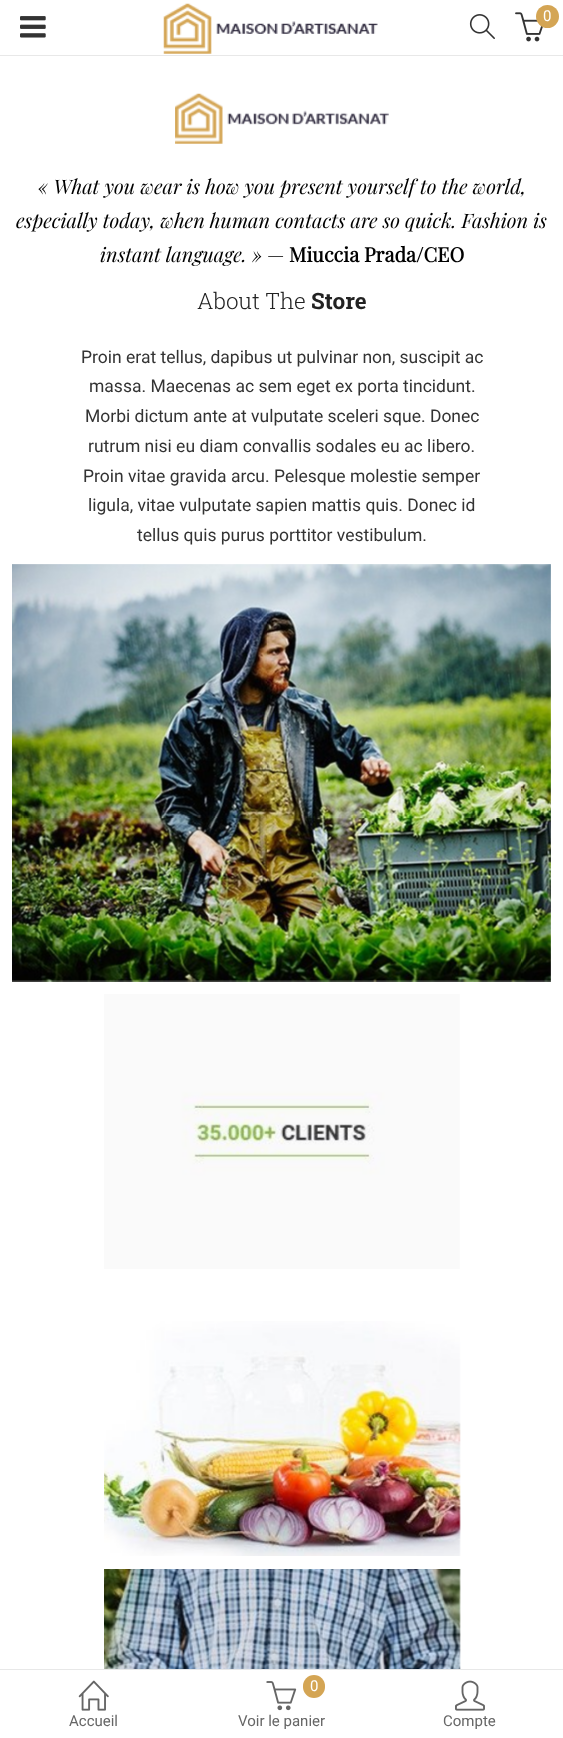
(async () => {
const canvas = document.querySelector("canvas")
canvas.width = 563
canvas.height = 1738
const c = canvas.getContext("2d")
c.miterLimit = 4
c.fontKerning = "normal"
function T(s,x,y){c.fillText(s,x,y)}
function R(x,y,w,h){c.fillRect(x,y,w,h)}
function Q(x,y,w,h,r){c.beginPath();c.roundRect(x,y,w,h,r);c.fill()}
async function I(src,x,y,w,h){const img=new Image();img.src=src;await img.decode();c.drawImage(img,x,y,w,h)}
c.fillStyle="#fff"
R(0,0,563,1738)
c.fillStyle="#e8e8e8"
R(0,55,563,1)
await I("1.png",20,16,26,22)
await I("2.png",163,3,215,51)
await I("3.png",469,14,26,25)
await I("4.png",515,12,28,30)
c.fillStyle="#d4a554"
c.beginPath()
c.arc(547.5,16.5,11.5,0,7)
c.fill()
c.font="15px Roboto"
c.fillStyle="#fff"
T("0",543,21)
await I("5.png",175,93,214,51)
c.font="italic 20px Playfair Display"
c.fillStyle="#000"
T("« What you wear is how you present yourself to the world,",38,194)
T("especially today, when human contacts are so quick. Fashion is",16,228)
T("instant language. »",100,262)
c.font="20px Playfair Display"
T("—",267,262)
c.font="bold 20px Playfair Display"
T("Miuccia Prada/CEO",289,262)
c.font="300 22.5px Roboto Slab"
c.fillStyle="#222"
T("About The",197,309)
c.font="bold 22.5px Roboto Slab"
T("Store",311,309)
c.font="17.5px Roboto"
c.fillStyle="#333"
T("Proin erat tellus, dapibus ut pulvinar non, suscipit ac",81,363)
T("massa. Maecenas ac sem eget ex porta tincidunt.",89,392)
T("Morbi dictum ante at vulputate sceleri sque. Donec",85,422)
T("rutrum nisi eu diam convallis sodales eu ac libero.",88,452)
T("Proin vitae gravida arcu. Pelesque molestie semper",83,482)
T("ligula, vitae vulputate sapien mattis quis. Donec id",88,511)
T("tellus quis purus porttitor vestibulum.",137,541)
await I("6.png",12,564,539,418)
await I("7.png",104,994,356,275)
await I("8.png",104,1321,357,235)
await I("9.png",104,1569,357,100)
c.fillStyle="#e8e8e8"
R(0,1669,563,1)
await I("10.png",78,1680,31,31)
c.font="15px Roboto"
c.fillStyle="#666"
T("Accueil",69,1726)
await I("11.png",266,1681,31,30)
c.fillStyle="#d4a554"
Q(303,1675,22,23,11)
c.fillStyle="#fff"
T("0",310,1691)
c.fillStyle="#666"
T("Voir le panier",238,1726)
await I("12.png",455,1680,30,31)
T("Compte",443,1726)
})()
